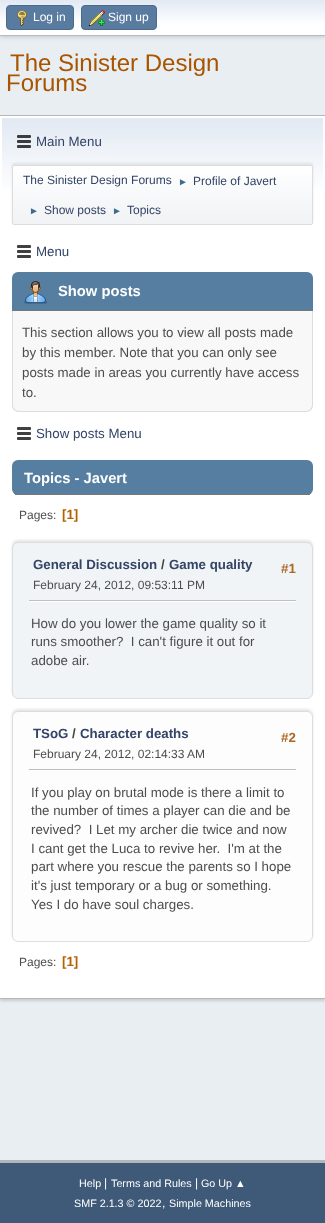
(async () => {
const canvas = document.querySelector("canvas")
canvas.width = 325
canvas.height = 1223
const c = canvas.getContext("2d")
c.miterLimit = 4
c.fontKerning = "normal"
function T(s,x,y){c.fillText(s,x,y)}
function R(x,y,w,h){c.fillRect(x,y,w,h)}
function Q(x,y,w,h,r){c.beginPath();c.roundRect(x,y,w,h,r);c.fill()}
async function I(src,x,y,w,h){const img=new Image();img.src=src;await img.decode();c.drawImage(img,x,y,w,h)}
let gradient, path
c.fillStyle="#e9eef2"
R(0,0,325,1223)
c.fillStyle="#00000029"
c.filter="blur(2px)"
c.beginPath()
c.rect(0,1,325,36)
c.fill()
c.filter="none"
gradient = c.createLinearGradient(163,0,163,35)
gradient.addColorStop(0,"#e2e9f3")
gradient.addColorStop(.7,"#fff")
c.fillStyle = gradient
R(0,0,325,35)
c.fillStyle="#bbb"
R(0,35,325,1)
c.fillStyle="#597b9f"
c.beginPath()
c.roundRect(6.5,5.5,67,24,3.5)
c.fill()
c.strokeStyle="#4a6b8c"
c.stroke()
await I("1.png",17,10,10,16)
c.font="12px Liberation Sans"
c.fillStyle="#fff"
T("Log in",33,21)
c.fillStyle="#597b9f"
c.beginPath()
c.roundRect(81.5,5.5,75,24,3.5)
c.fill()
c.stroke()
await I("2.png",89,10,16,16)
c.fillStyle="#fff"
T("Sign up",108,21)
c.font="24px Liberation Sans"
c.fillStyle="#a85400"
T("The Sinister Design",10,71)
T("Forums",6,91)
c.fillStyle="#00000024"
c.filter="blur(1.5px)"
c.beginPath()
c.rect(0,117,325,884)
c.fill()
c.filter="none"
c.fillStyle="#fff"
R(0,116,325,882)
c.fillStyle="#b8b8b8"
R(0,115,325,1)
R(0,998,325,1)
gradient = c.createLinearGradient(163,118,163,227)
gradient.addColorStop(0,"#e2e9f3")
gradient.addColorStop(.7,"#fff")
c.fillStyle = gradient
R(2,118,321,70)
await I("3.png",17,135,14,13)
c.font="13.3px Liberation Sans"
c.fillStyle="#346"
T("Main Menu",36,146)
c.fillStyle="#00000014"
c.filter="blur(1px)"
c.beginPath()
c.roundRect(12,163,301,60,2)
c.fill()
c.filter="none"
c.save()
c.beginPath()
c.roundRect(12,165,301,60,2)
c.clip()
gradient = c.createLinearGradient(163,166,163,224)
gradient.addColorStop(0,"#fff")
gradient.addColorStop(.95,"#f1f3f5")
c.fillStyle = gradient
R(12,166,301,58)
c.restore()
c.beginPath()
c.roundRect(12.5,165.5,300,59,1.5)
c.strokeStyle="#ddd"
c.stroke()
c.font="12px Liberation Sans"
c.fillStyle="#346"
T("The Sinister Design Forums",23,184)
c.font="10px Liberation Sans"
c.fillStyle="#3f6b8c"
T("►",178,185)
c.font="12px Liberation Sans"
c.fillStyle="#346"
T("Profile of Javert",193,185)
c.font="10px Liberation Sans"
c.fillStyle="#3f6b8c"
T("►",29,214)
c.font="12px Liberation Sans"
c.fillStyle="#346"
T("Show posts",44,214)
c.font="10px Liberation Sans"
c.fillStyle="#3f6b8c"
T("►",112,214)
c.font="12px Liberation Sans"
c.fillStyle="#346"
T("Topics",127,214)
await I("4.png",17,245,14,13)
c.font="13.3px Liberation Sans"
T("Menu",36,256)
c.fillStyle="#557ea0"
c.beginPath()
c.roundRect(12,272,301,39,[6,6,0,0])
c.fill()
c.fillStyle="#777"
R(12,310,301,1)
await I("5.png",24,281,23,23)
c.font="bold 14.75px Liberation Sans"
c.fillStyle="#fff"
T("Show posts",58,296)
c.fillStyle="#f8f8f8"
c.beginPath()
c.roundRect(12,311,301,101,[0,0,7,7])
c.fill()
c.fillStyle="#ddd"
path = new Path2D("M12 311h301v94c0 4-3 7-7 7h-287c-4 0-7-3-7-7zm1 0h299v94c0 3-3 6-6 6h-287c-3 0-6-3-6-6z")
c.fill(path,"evenodd")
c.font="13.3px Liberation Sans"
c.fillStyle="#4d4d4d"
T("This section allows you to view all posts made",22,337)
T("by this member. Note that you can only see",22,357)
T("posts made in areas you currently have access",22,377)
T("to.",22,397)
await I("4.png",17,427,14,13)
c.fillStyle="#346"
T("Show posts Menu",36,438)
c.fillStyle="#557ea0"
Q(12,460,301,35,6)
c.fillStyle="#777"
R(15,494,295,1)
c.font="bold 14.75px Liberation Sans"
c.fillStyle="#fff"
T("Topics - Javert",24,483)
c.font="12px Liberation Sans"
c.fillStyle="#4d4d4d"
T("Pages:",19,519)
c.font="bold 13.3px Liberation Sans"
c.fillStyle="#b46100"
T("[1]",62,519)
c.fillStyle="#0000001a"
c.filter="blur(1px)"
c.beginPath()
c.roundRect(12,540,301,157,6)
c.fill()
c.filter="none"
c.fillStyle="#f0f4f7"
c.beginPath()
c.roundRect(12.5,542.5,300,156,5.5)
c.fill()
c.stroke()
c.fillStyle="#346"
T("General Discussion",33,569)
c.fillStyle="#444"
T("/",161,569)
c.fillStyle="#346"
T("Game quality",169,569)
c.font="12px Liberation Sans"
c.fillStyle="#4d4d4d"
T("February 24, 2012, 09:53:11 PM",33,589)
c.font="bold 13.3px Liberation Sans"
c.fillStyle="#ad6825"
T("#1",281,573)
c.fillStyle="#fff"
R(29,601,267,1)
c.fillStyle="#bfbfbf"
R(29,600,267,1)
c.font="13.3px Liberation Sans"
c.fillStyle="#4d4d4d"
T("How do you lower the game quality so it",31,628)
T("runs smoother?  I can't figure it out for",31,646)
T("adobe air.",31,665)
c.fillStyle="#0000001a"
c.filter="blur(1px)"
c.beginPath()
c.roundRect(12,709,301,231,6)
c.fill()
c.filter="none"
c.fillStyle="#fdfdfd"
c.beginPath()
c.roundRect(12.5,711.5,300,230,5.5)
c.fill()
c.stroke()
c.font="bold 13.3px Liberation Sans"
c.fillStyle="#346"
T("TSoG",33,738)
c.fillStyle="#444"
T("/",72,738)
c.fillStyle="#346"
T("Character deaths",80,738)
c.font="12px Liberation Sans"
c.fillStyle="#4d4d4d"
T("February 24, 2012, 02:14:33 AM",33,758)
c.font="bold 13.3px Liberation Sans"
c.fillStyle="#ad6825"
T("#2",281,742)
c.fillStyle="#bfbfbf"
R(29,769,267,1)
c.font="13.3px Liberation Sans"
c.fillStyle="#4d4d4d"
T("If you play on brutal mode is there a limit to",31,797)
T("the number of times a player can die and be",31,815)
T("revived?  I Let my archer die twice and now",31,834)
T("I cant get the Luca to revive her.  I'm at the",31,853)
T("part where you rescue the parents so I hope",31,871)
T("it's just temporary or a bug or something.",31,890)
T("Yes I do have soul charges.",31,909)
c.font="12px Liberation Sans"
T("Pages:",19,966)
c.font="bold 13.3px Liberation Sans"
c.fillStyle="#b46100"
T("[1]",62,966)
c.fillStyle="#3e5a78"
R(0,1163,325,60)
c.fillStyle="#b2b6bd"
R(0,1160,325,3)
c.font="10.75px Liberation Sans"
c.fillStyle="#fff"
T("Help",79,1187)
c.font="12px Liberation Sans"
T("|",104,1187)
c.font="10.75px Liberation Sans"
T("Terms and Rules",111,1187)
c.font="12px Liberation Sans"
T("|",195,1187)
c.font="10.75px Liberation Sans"
T("Go Up ▲",201,1187)
T("SMF 2.1.3 © 2022",74,1207)
c.font="12px Liberation Sans"
T(",",162,1207)
c.font="10.75px Liberation Sans"
T("Simple Machines",169,1207)
})()
